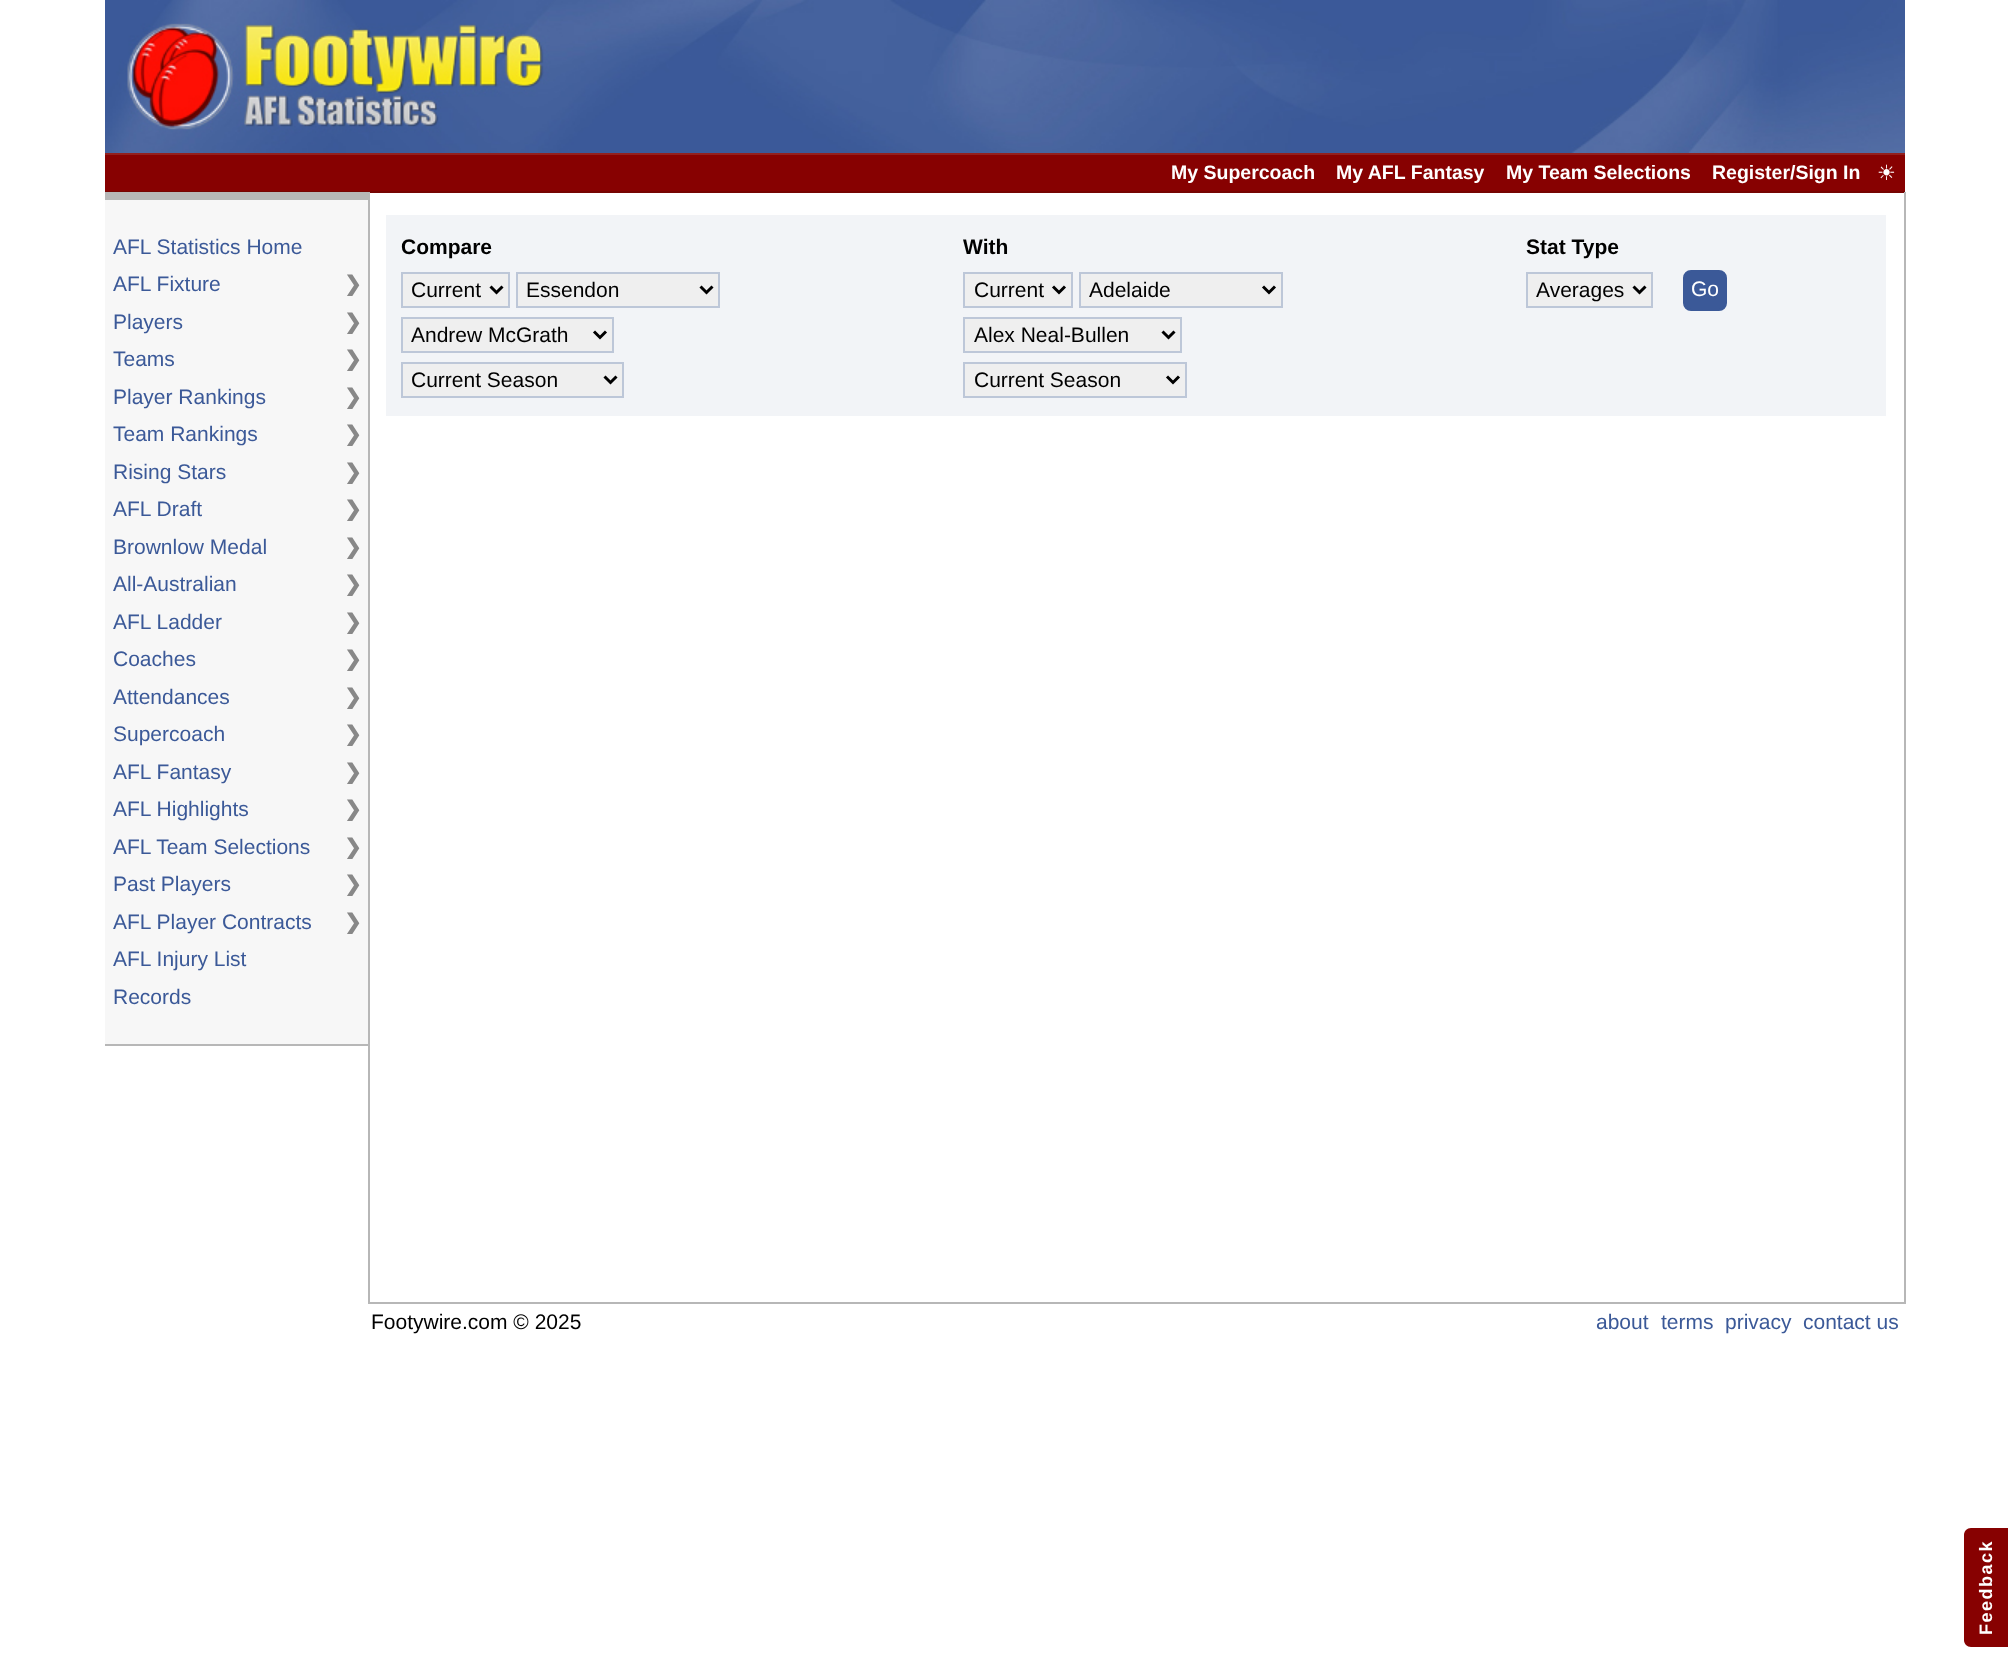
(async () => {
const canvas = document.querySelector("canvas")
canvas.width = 2009
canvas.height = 1677
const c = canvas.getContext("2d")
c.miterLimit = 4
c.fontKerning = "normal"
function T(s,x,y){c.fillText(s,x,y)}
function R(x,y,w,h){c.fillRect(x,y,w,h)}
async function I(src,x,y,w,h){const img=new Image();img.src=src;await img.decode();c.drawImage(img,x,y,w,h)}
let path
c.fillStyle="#fff"
R(0,0,2009,1677)
await I("1.png",105,0,1800,153)
c.fillStyle="#870101"
R(105,155,1800,36)
c.fillStyle="#92201e"
R(105,153,1800,2)
c.fillStyle="#760402"
R(105,191,1800,2)
c.font="bold 19.5px Liberation Sans"
c.fillStyle="#fff"
T("My Supercoach",1171,179)
T("My AFL Fantasy",1336,179)
T("My Team Selections",1506,179)
T("Register/Sign In",1712,179)
c.font="21px DejaVu Sans"
T("☀",1877,180)
c.fillStyle="#f7f7f7"
R(105,200,263,844)
c.fillStyle="#b7b7b7"
R(105,192,263,8)
c.font="21px Liberation Sans"
c.fillStyle="#3b5998"
T("AFL Statistics Home",113,254)
T("AFL Fixture",113,291)
c.font="bold 21px DejaVu Sans"
c.fillStyle="#888"
T("❯",344,291)
c.font="21px Liberation Sans"
c.fillStyle="#3b5998"
T("Players",113,329)
c.font="bold 21px DejaVu Sans"
c.fillStyle="#888"
T("❯",344,329)
c.font="21px Liberation Sans"
c.fillStyle="#3b5998"
T("Teams",113,366)
c.font="bold 21px DejaVu Sans"
c.fillStyle="#888"
T("❯",344,366)
c.font="21px Liberation Sans"
c.fillStyle="#3b5998"
T("Player Rankings",113,404)
c.font="bold 21px DejaVu Sans"
c.fillStyle="#888"
T("❯",344,404)
c.font="21px Liberation Sans"
c.fillStyle="#3b5998"
T("Team Rankings",113,441)
c.font="bold 21px DejaVu Sans"
c.fillStyle="#888"
T("❯",344,441)
c.font="21px Liberation Sans"
c.fillStyle="#3b5998"
T("Rising Stars",113,479)
c.font="bold 21px DejaVu Sans"
c.fillStyle="#888"
T("❯",344,479)
c.font="21px Liberation Sans"
c.fillStyle="#3b5998"
T("AFL Draft",113,516)
c.font="bold 21px DejaVu Sans"
c.fillStyle="#888"
T("❯",344,516)
c.font="21px Liberation Sans"
c.fillStyle="#3b5998"
T("Brownlow Medal",113,554)
c.font="bold 21px DejaVu Sans"
c.fillStyle="#888"
T("❯",344,554)
c.font="21px Liberation Sans"
c.fillStyle="#3b5998"
T("All-Australian",113,591)
c.font="bold 21px DejaVu Sans"
c.fillStyle="#888"
T("❯",344,591)
c.font="21px Liberation Sans"
c.fillStyle="#3b5998"
T("AFL Ladder",113,629)
c.font="bold 21px DejaVu Sans"
c.fillStyle="#888"
T("❯",344,629)
c.font="21px Liberation Sans"
c.fillStyle="#3b5998"
T("Coaches",113,666)
c.font="bold 21px DejaVu Sans"
c.fillStyle="#888"
T("❯",344,666)
c.font="21px Liberation Sans"
c.fillStyle="#3b5998"
T("Attendances",113,704)
c.font="bold 21px DejaVu Sans"
c.fillStyle="#888"
T("❯",344,704)
c.font="21px Liberation Sans"
c.fillStyle="#3b5998"
T("Supercoach",113,741)
c.font="bold 21px DejaVu Sans"
c.fillStyle="#888"
T("❯",344,741)
c.font="21px Liberation Sans"
c.fillStyle="#3b5998"
T("AFL Fantasy",113,779)
c.font="bold 21px DejaVu Sans"
c.fillStyle="#888"
T("❯",344,779)
c.font="21px Liberation Sans"
c.fillStyle="#3b5998"
T("AFL Highlights",113,816)
c.font="bold 21px DejaVu Sans"
c.fillStyle="#888"
T("❯",344,816)
c.font="21px Liberation Sans"
c.fillStyle="#3b5998"
T("AFL Team Selections",113,854)
c.font="bold 21px DejaVu Sans"
c.fillStyle="#888"
T("❯",344,854)
c.font="21px Liberation Sans"
c.fillStyle="#3b5998"
T("Past Players",113,891)
c.font="bold 21px DejaVu Sans"
c.fillStyle="#888"
T("❯",344,891)
c.font="21px Liberation Sans"
c.fillStyle="#3b5998"
T("AFL Player Contracts",113,929)
c.font="bold 21px DejaVu Sans"
c.fillStyle="#888"
T("❯",344,929)
c.font="21px Liberation Sans"
c.fillStyle="#3b5998"
T("AFL Injury List",113,966)
T("Records",113,1004)
c.fillStyle="#b7b7b7"
R(105,1044,263,2)
R(368,192,2,1112)
c.fillStyle="#f2f4f7"
R(386,215,1500,15)
R(386,230,15,171)
R(401,230,1470,39)
c.font="bold 21px Liberation Sans"
c.fillStyle="#000"
T("Compare",401,254)
T("With",963,254)
T("Stat Type",1526,254)
c.fillStyle="#f2f4f7"
R(1871,230,15,171)
R(401,269,1470,45)
c.fillStyle="#efefef"
c.beginPath()
c.rect(402,273,107,34)
c.fill()
c.strokeStyle="#bdc7d8"
c.lineWidth=2
c.stroke()
path = new Path2D("M490.5 286.5l6 6l6-6")
c.strokeStyle="#000"
c.lineWidth=3
c.stroke(path)
c.font="21px Liberation Sans"
c.fillStyle="#000"
T("Current",411,297)
c.fillStyle="#efefef"
c.beginPath()
c.rect(517,273,202,34)
c.fill()
c.strokeStyle="#bdc7d8"
c.lineWidth=2
c.stroke()
path = new Path2D("M700.5 286.5l6 6l6-6")
c.strokeStyle="#000"
c.lineWidth=3
c.stroke(path)
c.fillStyle="#000"
T("Essendon",526,297)
c.fillStyle="#efefef"
c.beginPath()
c.rect(964,273,108,34)
c.fill()
c.strokeStyle="#bdc7d8"
c.lineWidth=2
c.stroke()
path = new Path2D("M1053 286.5l6 6l6-6")
c.strokeStyle="#000"
c.lineWidth=3
c.stroke(path)
c.fillStyle="#000"
T("Current",974,297)
c.fillStyle="#efefef"
c.beginPath()
c.rect(1080,273,202,34)
c.fill()
c.strokeStyle="#bdc7d8"
c.lineWidth=2
c.stroke()
path = new Path2D("M1263 286.5l6 6l6-6")
c.strokeStyle="#000"
c.lineWidth=3
c.stroke(path)
c.fillStyle="#000"
T("Adelaide",1089,297)
c.fillStyle="#efefef"
c.beginPath()
c.rect(1527,273,125,34)
c.fill()
c.strokeStyle="#bdc7d8"
c.lineWidth=2
c.stroke()
path = new Path2D("M1633.5 286.5l6 6l6-6")
c.strokeStyle="#000"
c.lineWidth=3
c.stroke(path)
c.fillStyle="#000"
T("Averages",1536,297)
c.fillStyle="#3b5998"
c.beginPath()
c.roundRect(1684,271,42,39,7)
c.fill()
c.strokeStyle="#3b5998"
c.lineWidth=2
c.stroke()
c.fillStyle="#fff"
T("Go",1691,296)
c.fillStyle="#f2f4f7"
R(401,314,1470,45)
c.fillStyle="#efefef"
c.beginPath()
c.rect(402,318,211,34)
c.fill()
c.strokeStyle="#bdc7d8"
c.stroke()
path = new Path2D("M594 331.5l6 6l6-6")
c.strokeStyle="#000"
c.lineWidth=3
c.stroke(path)
c.fillStyle="#000"
T("Andrew McGrath",411,342)
c.fillStyle="#efefef"
c.beginPath()
c.rect(964,318,217,34)
c.fill()
c.strokeStyle="#bdc7d8"
c.lineWidth=2
c.stroke()
path = new Path2D("M1162.5 331.5l6 6l6-6")
c.strokeStyle="#000"
c.lineWidth=3
c.stroke(path)
c.fillStyle="#000"
T("Alex Neal-Bullen",974,342)
c.fillStyle="#f2f4f7"
R(401,359,1470,42)
c.fillStyle="#efefef"
c.beginPath()
c.rect(402,363,221,34)
c.fill()
c.strokeStyle="#bdc7d8"
c.lineWidth=2
c.stroke()
path = new Path2D("M604.5 376.5l6 6l6-6")
c.strokeStyle="#000"
c.lineWidth=3
c.stroke(path)
c.fillStyle="#000"
T("Current Season",411,387)
c.fillStyle="#efefef"
c.beginPath()
c.rect(964,363,222,34)
c.fill()
c.strokeStyle="#bdc7d8"
c.lineWidth=2
c.stroke()
path = new Path2D("M1167 376.5l6 6l6-6")
c.strokeStyle="#000"
c.lineWidth=3
c.stroke(path)
c.fillStyle="#000"
T("Current Season",974,387)
c.fillStyle="#f2f4f7"
R(386,401,1500,15)
c.fillStyle="#b7b7b7"
R(1904,192,2,1112)
R(369,1302,1535,2)
c.fillStyle="#000"
T("Footywire.com © 2025",371,1329)
c.fillStyle="#3b5998"
T("about",1596,1329)
T("terms",1661,1329)
T("privacy",1725,1329)
T("contact us",1803,1329)
c.fillStyle="#870101"
path = new Path2D("M2008 1647h-37c-4 0-7-3-7-7v-105c0-4 3-7 7-7h37z")
c.fill(path)
c.letterSpacing="1.5px"
c.font="bold 18px Liberation Sans"
c.fillStyle="#fff"
c.save()
c.translate(1992,1635)
c.rotate(-90 * Math.PI / 180)
c.fillText("Feedback",0,0)
c.restore()
})()
